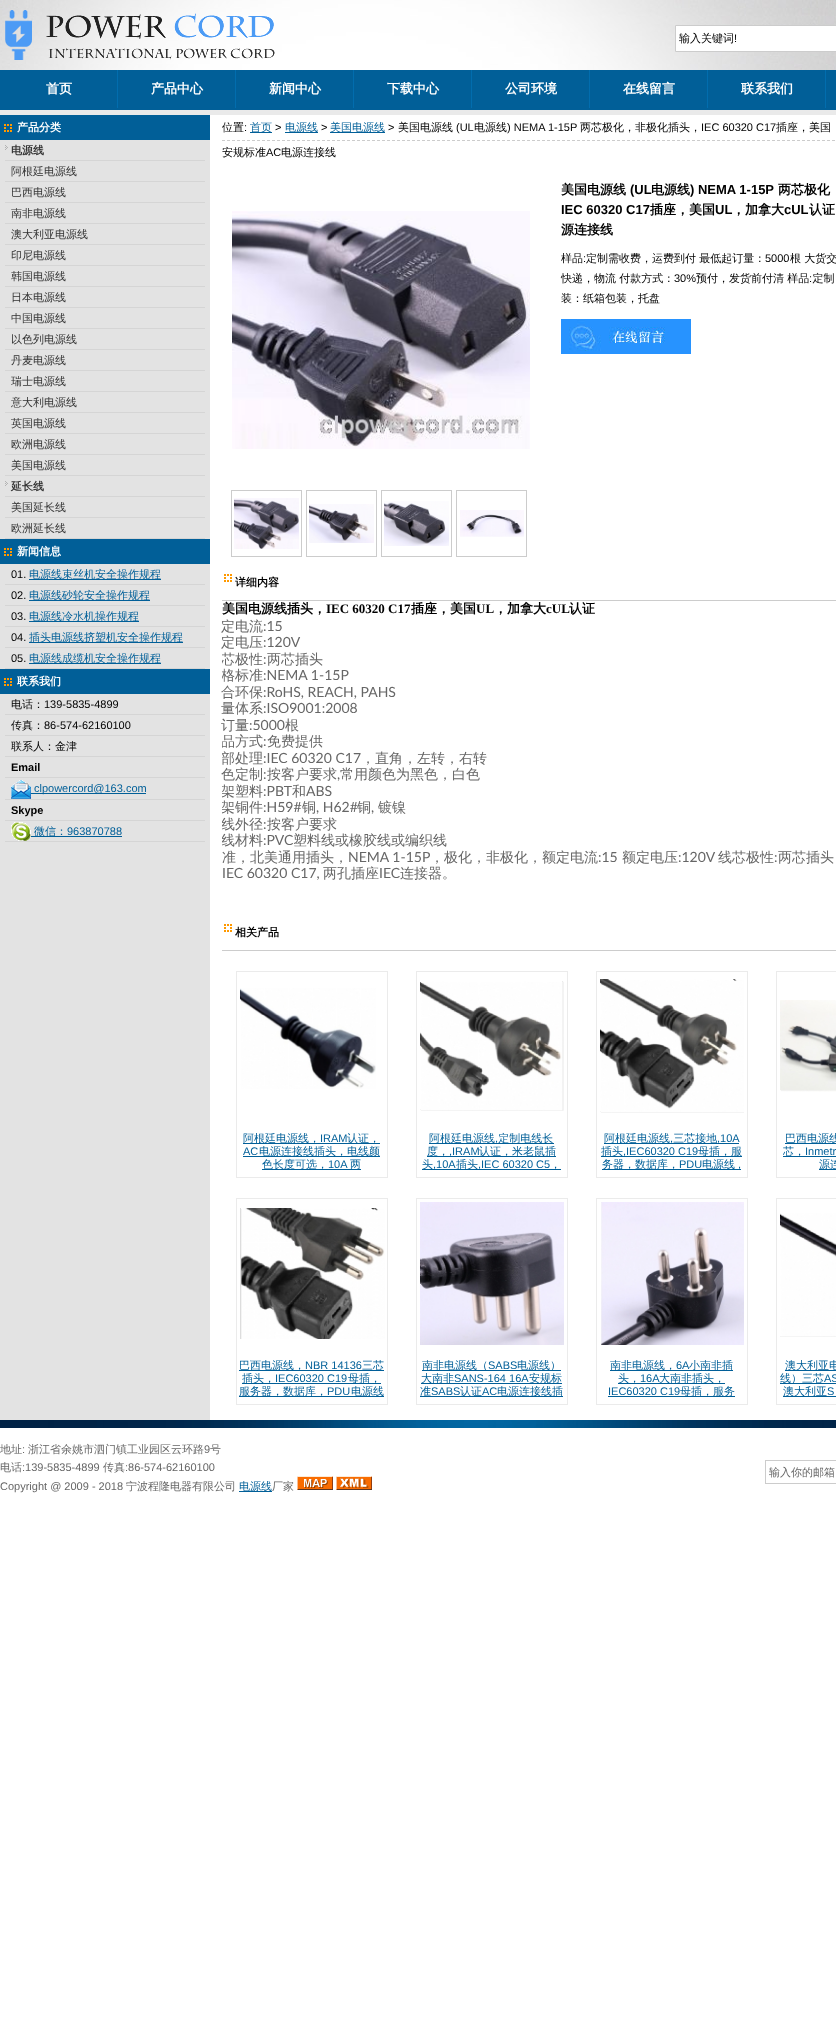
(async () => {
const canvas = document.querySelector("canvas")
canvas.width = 836
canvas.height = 2026
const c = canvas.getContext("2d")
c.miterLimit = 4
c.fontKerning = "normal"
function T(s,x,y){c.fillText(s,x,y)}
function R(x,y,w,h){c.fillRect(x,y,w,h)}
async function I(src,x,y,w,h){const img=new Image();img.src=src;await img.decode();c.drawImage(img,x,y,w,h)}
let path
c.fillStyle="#fff"
R(0,0,836,2026)
await I("1.png",0,0,836,70)
await I("2.png",5,10,270,50)
c.beginPath()
c.rect(675.5,25.5,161,26)
c.fill()
c.strokeStyle="#ccc"
c.stroke()
c.font="500 11px WenQuanYi Zen Hei"
c.fillStyle="#000"
T("输入关键词",679,42)
c.font="11px Liberation Sans"
T("!",734,42)
c.fillStyle="#015f98"
R(0,70,836,40)
c.fillStyle="#eaeaea"
R(0,110,836,5)
c.fillStyle="#026dae"
R(117,70,1,38)
c.font="bold 13px WenQuanYi Zen Hei"
c.fillStyle="#fff"
T("首页",46,93)
c.fillStyle="#026dae"
R(235,70,1,38)
c.fillStyle="#fff"
T("产品中心",151,93)
c.fillStyle="#026dae"
R(353,70,1,38)
c.fillStyle="#fff"
T("新闻中心",269,93)
c.fillStyle="#026dae"
R(471,70,1,38)
c.fillStyle="#fff"
T("下载中心",387,93)
c.fillStyle="#026dae"
R(589,70,1,38)
c.fillStyle="#fff"
T("公司环境",505,93)
c.fillStyle="#026dae"
R(707,70,1,38)
c.fillStyle="#fff"
T("在线留言",623,93)
c.fillStyle="#026dae"
R(825,70,1,38)
c.fillStyle="#fff"
T("联系我们",741,93)
await I("3.png",0,115,836,1305)
c.fillStyle="#015f98"
R(0,115,210,25)
await I("4.png",4,124,8,8)
c.font="bold 11px WenQuanYi Zen Hei"
c.fillStyle="#fff"
T("产品分类",17,131)
await I("5.png",5,145,3,5)
c.fillStyle="#d5d5d5"
R(5,160,200,1)
c.fillStyle="#333"
T("电源线",11,154)
c.fillStyle="#d5d5d5"
R(5,181,200,1)
c.font="500 11px WenQuanYi Zen Hei"
c.fillStyle="#333"
T("阿根廷电源线",11,175)
c.fillStyle="#d5d5d5"
R(5,202,200,1)
c.fillStyle="#333"
T("巴西电源线",11,196)
c.fillStyle="#d5d5d5"
R(5,223,200,1)
c.fillStyle="#333"
T("南非电源线",11,217)
c.fillStyle="#d5d5d5"
R(5,244,200,1)
c.fillStyle="#333"
T("澳大利亚电源线",11,238)
c.fillStyle="#d5d5d5"
R(5,265,200,1)
c.fillStyle="#333"
T("印尼电源线",11,259)
c.fillStyle="#d5d5d5"
R(5,286,200,1)
c.fillStyle="#333"
T("韩国电源线",11,280)
c.fillStyle="#d5d5d5"
R(5,307,200,1)
c.fillStyle="#333"
T("日本电源线",11,301)
c.fillStyle="#d5d5d5"
R(5,328,200,1)
c.fillStyle="#333"
T("中国电源线",11,322)
c.fillStyle="#d5d5d5"
R(5,349,200,1)
c.fillStyle="#333"
T("以色列电源线",11,343)
c.fillStyle="#d5d5d5"
R(5,370,200,1)
c.fillStyle="#333"
T("丹麦电源线",11,364)
c.fillStyle="#d5d5d5"
R(5,391,200,1)
c.fillStyle="#333"
T("瑞士电源线",11,385)
c.fillStyle="#d5d5d5"
R(5,412,200,1)
c.fillStyle="#333"
T("意大利电源线",11,406)
c.fillStyle="#d5d5d5"
R(5,433,200,1)
c.fillStyle="#333"
T("英国电源线",11,427)
c.fillStyle="#d5d5d5"
R(5,454,200,1)
c.fillStyle="#333"
T("欧洲电源线",11,448)
c.fillStyle="#d5d5d5"
R(5,475,200,1)
c.fillStyle="#333"
T("美国电源线",11,469)
await I("5.png",5,481,3,5)
c.fillStyle="#d5d5d5"
R(5,496,200,1)
c.font="bold 11px WenQuanYi Zen Hei"
c.fillStyle="#333"
T("延长线",11,490)
c.fillStyle="#d5d5d5"
R(5,517,200,1)
c.font="500 11px WenQuanYi Zen Hei"
c.fillStyle="#333"
T("美国延长线",11,511)
c.fillStyle="#d5d5d5"
R(5,538,200,1)
c.fillStyle="#333"
T("欧洲延长线",11,532)
c.fillStyle="#015f98"
R(0,539,210,25)
await I("4.png",4,548,8,8)
c.font="bold 11px WenQuanYi Zen Hei"
c.fillStyle="#fff"
T("新闻信息",17,555)
c.fillStyle="#d5d5d5"
R(5,584,200,1)
c.font="11px Liberation Sans"
c.fillStyle="#000"
T("01.",11,578)
c.fillStyle="#015f98"
R(29,579,132,1)
c.font="500 11px WenQuanYi Zen Hei"
T("电源线束丝机安全操作规程",29,578)
c.fillStyle="#d5d5d5"
R(5,605,200,1)
c.font="11px Liberation Sans"
c.fillStyle="#000"
T("02.",11,599)
c.fillStyle="#015f98"
R(29,600,121,1)
c.font="500 11px WenQuanYi Zen Hei"
T("电源线砂轮安全操作规程",29,599)
c.fillStyle="#d5d5d5"
R(5,626,200,1)
c.font="11px Liberation Sans"
c.fillStyle="#000"
T("03.",11,620)
c.fillStyle="#015f98"
R(29,621,110,1)
c.font="500 11px WenQuanYi Zen Hei"
T("电源线冷水机操作规程",29,620)
c.fillStyle="#d5d5d5"
R(5,647,200,1)
c.font="11px Liberation Sans"
c.fillStyle="#000"
T("04.",11,641)
c.fillStyle="#015f98"
R(29,642,154,1)
c.font="500 11px WenQuanYi Zen Hei"
T("插头电源线挤塑机安全操作规程",29,641)
c.fillStyle="#d5d5d5"
R(5,668,200,1)
c.font="11px Liberation Sans"
c.fillStyle="#000"
T("05.",11,662)
c.fillStyle="#015f98"
R(29,663,132,1)
c.font="500 11px WenQuanYi Zen Hei"
T("电源线成缆机安全操作规程",29,662)
R(0,669,210,25)
await I("4.png",4,678,8,8)
c.font="bold 11px WenQuanYi Zen Hei"
c.fillStyle="#fff"
T("联系我们",17,685)
c.fillStyle="#d5d5d5"
R(5,714,200,1)
c.font="500 11px WenQuanYi Zen Hei"
c.fillStyle="#000"
T("电话：",11,708)
c.font="11px Liberation Sans"
T("139-5835-4899",44,708)
c.fillStyle="#d5d5d5"
R(5,735,200,1)
c.font="500 11px WenQuanYi Zen Hei"
c.fillStyle="#000"
T("传真：",11,729)
c.font="11px Liberation Sans"
T("86-574-62160100",44,729)
c.fillStyle="#d5d5d5"
R(5,756,200,1)
c.font="500 11px WenQuanYi Zen Hei"
c.fillStyle="#000"
T("联系人：金津",11,750)
c.fillStyle="#d5d5d5"
R(5,777,200,1)
c.font="bold 11px Liberation Sans"
c.fillStyle="#000"
T("Email",11,771)
c.fillStyle="#d5d5d5"
R(5,799,200,1)
await I("6.png",11,780,20,19)
c.fillStyle="#015f98"
R(31,793,115,1)
c.font="11px Liberation Sans"
T("clpowercord@163.com",34,792)
c.fillStyle="#d5d5d5"
R(5,820,200,1)
c.font="bold 11px Liberation Sans"
c.fillStyle="#000"
T("Skype",11,814)
c.fillStyle="#d5d5d5"
R(5,841,200,1)
await I("7.png",11,822,20,19)
c.fillStyle="#015f98"
R(31,836,91,1)
c.font="500 11px WenQuanYi Zen Hei"
T("微信：",34,835)
c.font="11px Liberation Sans"
T("963870788",67,835)
path = new Path2D("M222 140.5h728")
c.setLineDash([3,2])
c.stroke(path)
c.font="500 11px WenQuanYi Zen Hei"
c.fillStyle="#000"
T("位置",222,131)
c.font="11px Liberation Sans"
T(":",244,131)
c.fillStyle="#015f98"
R(250,132,22,1)
c.font="500 11px WenQuanYi Zen Hei"
T("首页",250,131)
c.font="11px Liberation Sans"
c.fillStyle="#000"
T(">",275,131)
c.fillStyle="#015f98"
R(285,132,33,1)
c.font="500 11px WenQuanYi Zen Hei"
T("电源线",285,131)
c.font="11px Liberation Sans"
c.fillStyle="#000"
T(">",321,131)
c.fillStyle="#015f98"
R(330,132,55,1)
c.font="500 11px WenQuanYi Zen Hei"
T("美国电源线",330,131)
c.font="11px Liberation Sans"
c.fillStyle="#000"
T(">",388,131)
c.font="500 11px WenQuanYi Zen Hei"
T("美国电源线",398,131)
c.font="11px Liberation Sans"
T("(UL",456,131)
c.font="500 11px WenQuanYi Zen Hei"
T("电源线",474,131)
c.font="11px Liberation Sans"
T(") NEMA 1-15P",507,131)
c.font="500 11px WenQuanYi Zen Hei"
T("两芯极化，非极化插头，",580,131)
c.font="11px Liberation Sans"
T("IEC 60320 C17",701,131)
c.font="500 11px WenQuanYi Zen Hei"
T("插座，美国",776,131)
T("安规标准",222,156)
c.font="11px Liberation Sans"
T("AC",266,156)
c.font="500 11px WenQuanYi Zen Hei"
T("电源连接线",281,156)
await I("8.png",232,211,298,238)
c.setLineDash([])
c.strokeRect(231.5,490.5,70,66)
await I("9.png",234,498,65,51)
c.strokeRect(306.5,490.5,70,66)
await I("10.png",309,504,65,39)
c.strokeRect(381.5,490.5,70,66)
await I("11.png",384,501,65,45)
c.strokeRect(456.5,490.5,70,66)
await I("12.png",460,510,64,27)
c.font="bold 13px WenQuanYi Zen Hei"
T("美国电源线",561,194)
c.font="bold 13px Liberation Sans"
T("(UL",630,194)
c.font="bold 13px WenQuanYi Zen Hei"
T("电源线",651,194)
c.font="bold 13px Liberation Sans"
T(") NEMA 1-15P",690,194)
c.font="bold 13px WenQuanYi Zen Hei"
T("两芯极化",778,194)
c.font="bold 13px Liberation Sans"
T("IEC 60320 C17",561,214)
c.font="bold 13px WenQuanYi Zen Hei"
T("插座，美国",650,214)
c.font="bold 13px Liberation Sans"
T("UL",715,214)
c.font="bold 13px WenQuanYi Zen Hei"
T("，加拿大",732,214)
c.font="bold 13px Liberation Sans"
T("cUL",784,214)
c.font="bold 13px WenQuanYi Zen Hei"
T("认证",809,214)
T("源连接线",561,234)
c.font="500 11px WenQuanYi Zen Hei"
T("样品",561,262)
c.font="11px Liberation Sans"
T(":",583,262)
c.font="500 11px WenQuanYi Zen Hei"
T("定制需收费，运费到付 最低起订量：",586,262)
c.font="11px Liberation Sans"
T("5000",765,262)
c.font="500 11px WenQuanYi Zen Hei"
T("根 大货交",790,262)
T("快递，物流 付款方式：",561,282)
c.font="11px Liberation Sans"
T("30%",674,282)
c.font="500 11px WenQuanYi Zen Hei"
T("预付，发货前付清 样品 定制",696,282)
c.font="11px Liberation Sans"
T(":",809,282)
c.font="500 11px WenQuanYi Zen Hei"
T("装：纸箱包装，托盘",561,302)
await I("13.png",561,319,130,35)
c.fillStyle="#ccc"
R(222,600,614,1)
await I("14.png",224,574,8,8)
c.font="bold 11px WenQuanYi Zen Hei"
c.fillStyle="#000"
T("详细内容",235,586)
c.font="bold 13px WenQuanYi Zen Hei"
T("美国电源线插头，",222,613)
c.font="bold 13px Liberation Serif"
T("IEC 60320 C17",326,613)
c.font="bold 13px WenQuanYi Zen Hei"
T("插座，美国",411,613)
c.font="bold 13px Liberation Serif"
T("UL",476,613)
c.font="bold 13px WenQuanYi Zen Hei"
T("，加拿大",494,613)
c.font="bold 13px Liberation Serif"
T("cUL",546,613)
c.font="bold 13px WenQuanYi Zen Hei"
T("认证",569,613)
c.font="500 14px WenQuanYi Zen Hei"
c.fillStyle="#666"
T("定电流",221,631)
c.font="14px Lato"
T(":15",263,631)
c.font="500 14px WenQuanYi Zen Hei"
T("定电压",221,647)
c.font="14px Lato"
T(":120V",263,647)
c.save()
c.beginPath()
c.rect(222,601,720,314)
c.clip()
c.font="500 14px WenQuanYi Zen Hei"
T("芯极性",221,664)
c.restore()
T(":",263,664)
c.font="500 14px WenQuanYi Zen Hei"
T("两芯插头",267,664)
c.save()
c.beginPath()
c.rect(222,601,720,314)
c.clip()
T("格标准",221,680)
c.restore()
c.font="14px Lato"
T(":NEMA 1-15P",263,680)
c.font="500 14px WenQuanYi Zen Hei"
T("合环保",221,697)
c.font="14px Lato"
T(":RoHS, REACH, PAHS",263,697)
c.font="500 14px WenQuanYi Zen Hei"
T("量体系",221,713)
c.font="14px Lato"
T(":ISO9001:2008",263,713)
c.font="500 14px WenQuanYi Zen Hei"
T("订量",221,730)
c.font="14px Lato"
T(":5000",249,730)
c.font="500 14px WenQuanYi Zen Hei"
T("根",285,730)
c.save()
c.beginPath()
c.rect(222,601,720,314)
c.clip()
T("品方式",221,746)
c.restore()
c.font="14px Lato"
T(":",263,746)
c.font="500 14px WenQuanYi Zen Hei"
T("免费提供",267,746)
c.save()
c.beginPath()
c.rect(222,601,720,314)
c.clip()
T("部处理",221,763)
c.restore()
c.font="14px Lato"
T(":IEC 60320 C17",263,763)
c.font="500 14px WenQuanYi Zen Hei"
T("，直角，左转，右转",361,763)
T("色定制",221,779)
c.font="14px Lato"
T(":",263,779)
c.font="500 14px WenQuanYi Zen Hei"
T("按客户要求",267,779)
c.font="14px Lato"
T(",",337,779)
c.font="500 14px WenQuanYi Zen Hei"
T("常用颜色为黑色，白色",340,779)
c.save()
c.beginPath()
c.rect(222,601,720,314)
c.clip()
T("架塑料",221,796)
c.restore()
c.font="14px Lato"
T(":PBT",263,796)
c.font="500 14px WenQuanYi Zen Hei"
T("和",292,796)
c.font="14px Lato"
T("ABS",306,796)
c.save()
c.beginPath()
c.rect(222,601,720,314)
c.clip()
c.font="500 14px WenQuanYi Zen Hei"
T("架铜件",221,812)
c.restore()
T(":H59#",263,812)
c.font="500 14px WenQuanYi Zen Hei"
T("铜",302,812)
c.font="14px Lato"
T(", H62#",316,812)
c.font="500 14px WenQuanYi Zen Hei"
T("铜",357,812)
c.font="14px Lato"
T(",",371,812)
c.font="500 14px WenQuanYi Zen Hei"
T("镀镍",378,812)
c.save()
c.beginPath()
c.rect(222,601,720,314)
c.clip()
T("线外径",221,829)
c.restore()
c.font="14px Lato"
T(":",263,829)
c.font="500 14px WenQuanYi Zen Hei"
T("按客户要求",267,829)
c.save()
c.beginPath()
c.rect(222,601,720,314)
c.clip()
T("线材料",221,845)
c.restore()
c.font="14px Lato"
T(":PVC",263,845)
c.font="500 14px WenQuanYi Zen Hei"
T("塑料线或橡胶线或编织线",293,845)
T("准，北美通用插头，",222,862)
c.font="14px Lato"
T("NEMA 1-15P",348,862)
c.font="500 14px WenQuanYi Zen Hei"
T("，极化，非极化，额定电流",430,862)
c.font="14px Lato"
T(":15",598,862)
c.font="500 14px WenQuanYi Zen Hei"
T("额定电压",622,862)
c.font="14px Lato"
T(":120V",678,862)
c.font="500 14px WenQuanYi Zen Hei"
T("线芯极性",718,862)
c.font="14px Lato"
T(":",774,862)
c.font="500 14px WenQuanYi Zen Hei"
T("两芯插头",778,862)
c.font="14px Lato"
T("IEC 60320 C17,",222,878)
c.font="500 14px WenQuanYi Zen Hei"
T("两孔插座",323,878)
c.font="14px Lato"
T("IEC",379,878)
c.font="500 14px WenQuanYi Zen Hei"
T("连接器。",400,878)
c.fillStyle="#ccc"
R(222,950,614,1)
await I("14.png",224,924,8,8)
c.font="bold 11px WenQuanYi Zen Hei"
c.fillStyle="#000"
T("相关产品",235,936)
c.strokeStyle="#ebebeb"
c.strokeRect(236.5,971.5,151,206)
await I("15.png",240,988,136,101)
c.fillStyle="#015f98"
R(243,1143,137,1)
c.font="500 11px WenQuanYi Zen Hei"
T("阿根廷电源线，",243,1142)
c.font="11px Liberation Sans"
T("IRAM",320,1142)
c.font="500 11px WenQuanYi Zen Hei"
T("认证，",347,1142)
c.font="11px Liberation Sans"
T("AC",243,1155)
R(243,1156,137,1)
c.font="500 11px WenQuanYi Zen Hei"
T("电源连接线插头，电线颜",259,1155)
R(262,1169,99,1)
T("色长度可选，",262,1168)
c.font="11px Liberation Sans"
T("10A",328,1168)
c.font="500 11px WenQuanYi Zen Hei"
T("两",350,1168)
c.strokeRect(416.5,971.5,151,206)
await I("16.png",420,981,144,130)
R(429,1143,125,1)
T("阿根廷电源线 定制电线长",429,1142)
c.font="11px Liberation Sans"
T(",",495,1142)
R(427,1156,129,1)
c.font="500 11px WenQuanYi Zen Hei"
T("度，",427,1155)
c.font="11px Liberation Sans"
T(",IRAM",449,1155)
c.font="500 11px WenQuanYi Zen Hei"
T("认证，米老鼠插",479,1155)
R(422,1169,139,1)
T("头",422,1168)
c.font="11px Liberation Sans"
T(",10A",433,1168)
c.font="500 11px WenQuanYi Zen Hei"
T("插头",456,1168)
c.font="11px Liberation Sans"
T(",IEC 60320 C5",478,1168)
c.font="500 11px WenQuanYi Zen Hei"
T("，",550,1168)
c.strokeRect(596.5,971.5,151,206)
await I("17.png",600,979,144,134)
R(604,1143,135,1)
T("阿根廷电源线 三芯接地",604,1142)
c.font="11px Liberation Sans"
T(",10A",717,1142)
T(",",670,1142)
R(601,1156,141,1)
c.font="500 11px WenQuanYi Zen Hei"
T("插头",601,1155)
c.font="11px Liberation Sans"
T(",IEC60320 C19",623,1155)
c.font="500 11px WenQuanYi Zen Hei"
T("母插，服",698,1155)
R(602,1169,139,1)
T("务器，数据库，",602,1168)
c.font="11px Liberation Sans"
T("PDU",679,1168)
c.font="500 11px WenQuanYi Zen Hei"
T("电源线",702,1168)
c.font="11px Liberation Sans"
T(",",738,1168)
c.strokeRect(776.5,971.5,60,206)
await I("18.png",780,1000,56,92)
R(785,1143,51,1)
c.font="500 11px WenQuanYi Zen Hei"
T("巴西电源线",785,1142)
R(783,1156,53,1)
T("芯，",783,1155)
c.font="11px Liberation Sans"
T("Inmetr",805,1155)
R(819,1169,17,1)
c.font="500 11px WenQuanYi Zen Hei"
T("源连",819,1168)
c.strokeRect(236.5,1198.5,151,206)
await I("19.png",240,1208,145,131)
R(239,1370,145,1)
T("巴西电源线，",239,1369)
c.font="11px Liberation Sans"
T("NBR 14136",305,1369)
c.font="500 11px WenQuanYi Zen Hei"
T("三芯",362,1369)
R(242,1383,139,1)
T("插头，",242,1382)
c.font="11px Liberation Sans"
T("IEC60320 C19",275,1382)
c.font="500 11px WenQuanYi Zen Hei"
T("母插，",348,1382)
R(239,1396,145,1)
T("服务器，数据库，",239,1395)
c.font="11px Liberation Sans"
T("PDU",327,1395)
c.font="500 11px WenQuanYi Zen Hei"
T("电源线",351,1395)
c.strokeRect(416.5,1198.5,151,206)
await I("20.png",420,1202,144,143)
R(422,1370,139,1)
T("南非电源线（",422,1369)
c.font="11px Liberation Sans"
T("SABS",488,1369)
c.font="500 11px WenQuanYi Zen Hei"
T("电源线）",517,1369)
R(421,1383,141,1)
T("大南非",421,1382)
c.font="11px Liberation Sans"
T("SANS-164 16A",454,1382)
c.font="500 11px WenQuanYi Zen Hei"
T("安规标",529,1382)
R(420,1396,143,1)
T("准",420,1395)
c.font="11px Liberation Sans"
T("SABS",431,1395)
c.font="500 11px WenQuanYi Zen Hei"
T("认证",460,1395)
c.font="11px Liberation Sans"
T("AC",482,1395)
c.font="500 11px WenQuanYi Zen Hei"
T("电源连接线插",497,1395)
c.strokeRect(596.5,1198.5,151,206)
await I("21.png",601,1202,143,143)
R(610,1370,123,1)
T("南非电源线，",610,1369)
c.font="11px Liberation Sans"
T("6A",676,1369)
c.font="500 11px WenQuanYi Zen Hei"
T("小南非插",689,1369)
R(618,1383,107,1)
T("头，",618,1382)
c.font="11px Liberation Sans"
T("16A",640,1382)
c.font="500 11px WenQuanYi Zen Hei"
T("大南非插头，",659,1382)
c.font="11px Liberation Sans"
T("IEC60320 C19",608,1395)
R(608,1396,127,1)
c.font="500 11px WenQuanYi Zen Hei"
T("母插，服务",680,1395)
c.strokeRect(776.5,1198.5,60,206)
await I("22.png",780,1213,56,124)
R(785,1370,51,1)
T("澳大利亚电",785,1369)
R(780,1383,56,1)
T("线）三芯",780,1382)
c.font="11px Liberation Sans"
T("AS",824,1382)
R(783,1396,53,1)
c.font="500 11px WenQuanYi Zen Hei"
T("澳大利亚",783,1395)
c.font="11px Liberation Sans"
T("S",827,1395)
await I("23.png",0,1420,836,8)
c.font="500 11px WenQuanYi Zen Hei"
c.fillStyle="#666"
T("地址",0,1453)
c.font="11px Liberation Sans"
T(":",22,1453)
c.font="500 11px WenQuanYi Zen Hei"
T("浙江省余姚市泗门镇工业园区云环路",28,1453)
c.font="11px Liberation Sans"
T("9",204,1453)
c.font="500 11px WenQuanYi Zen Hei"
T("号",210,1453)
T("电话",0,1471)
c.font="11px Liberation Sans"
T(":139-5835-4899",22,1471)
c.font="500 11px WenQuanYi Zen Hei"
T("传真",103,1471)
c.font="11px Liberation Sans"
T(":86-574-62160100",125,1471)
T("Copyright @ 2009 - 2018",0,1490)
c.font="500 11px WenQuanYi Zen Hei"
T("宁波程隆电器有限公司",126,1490)
c.fillStyle="#015f98"
R(239,1491,33,1)
T("电源线",239,1490)
c.fillStyle="#666"
T("厂家",272,1490)
await I("24.png",297,1476,36,14)
await I("25.png",336,1476,36,14)
c.strokeStyle="#ccc"
c.strokeRect(765.5,1460.5,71,23)
T("输入你的邮箱",769,1476)
})()
